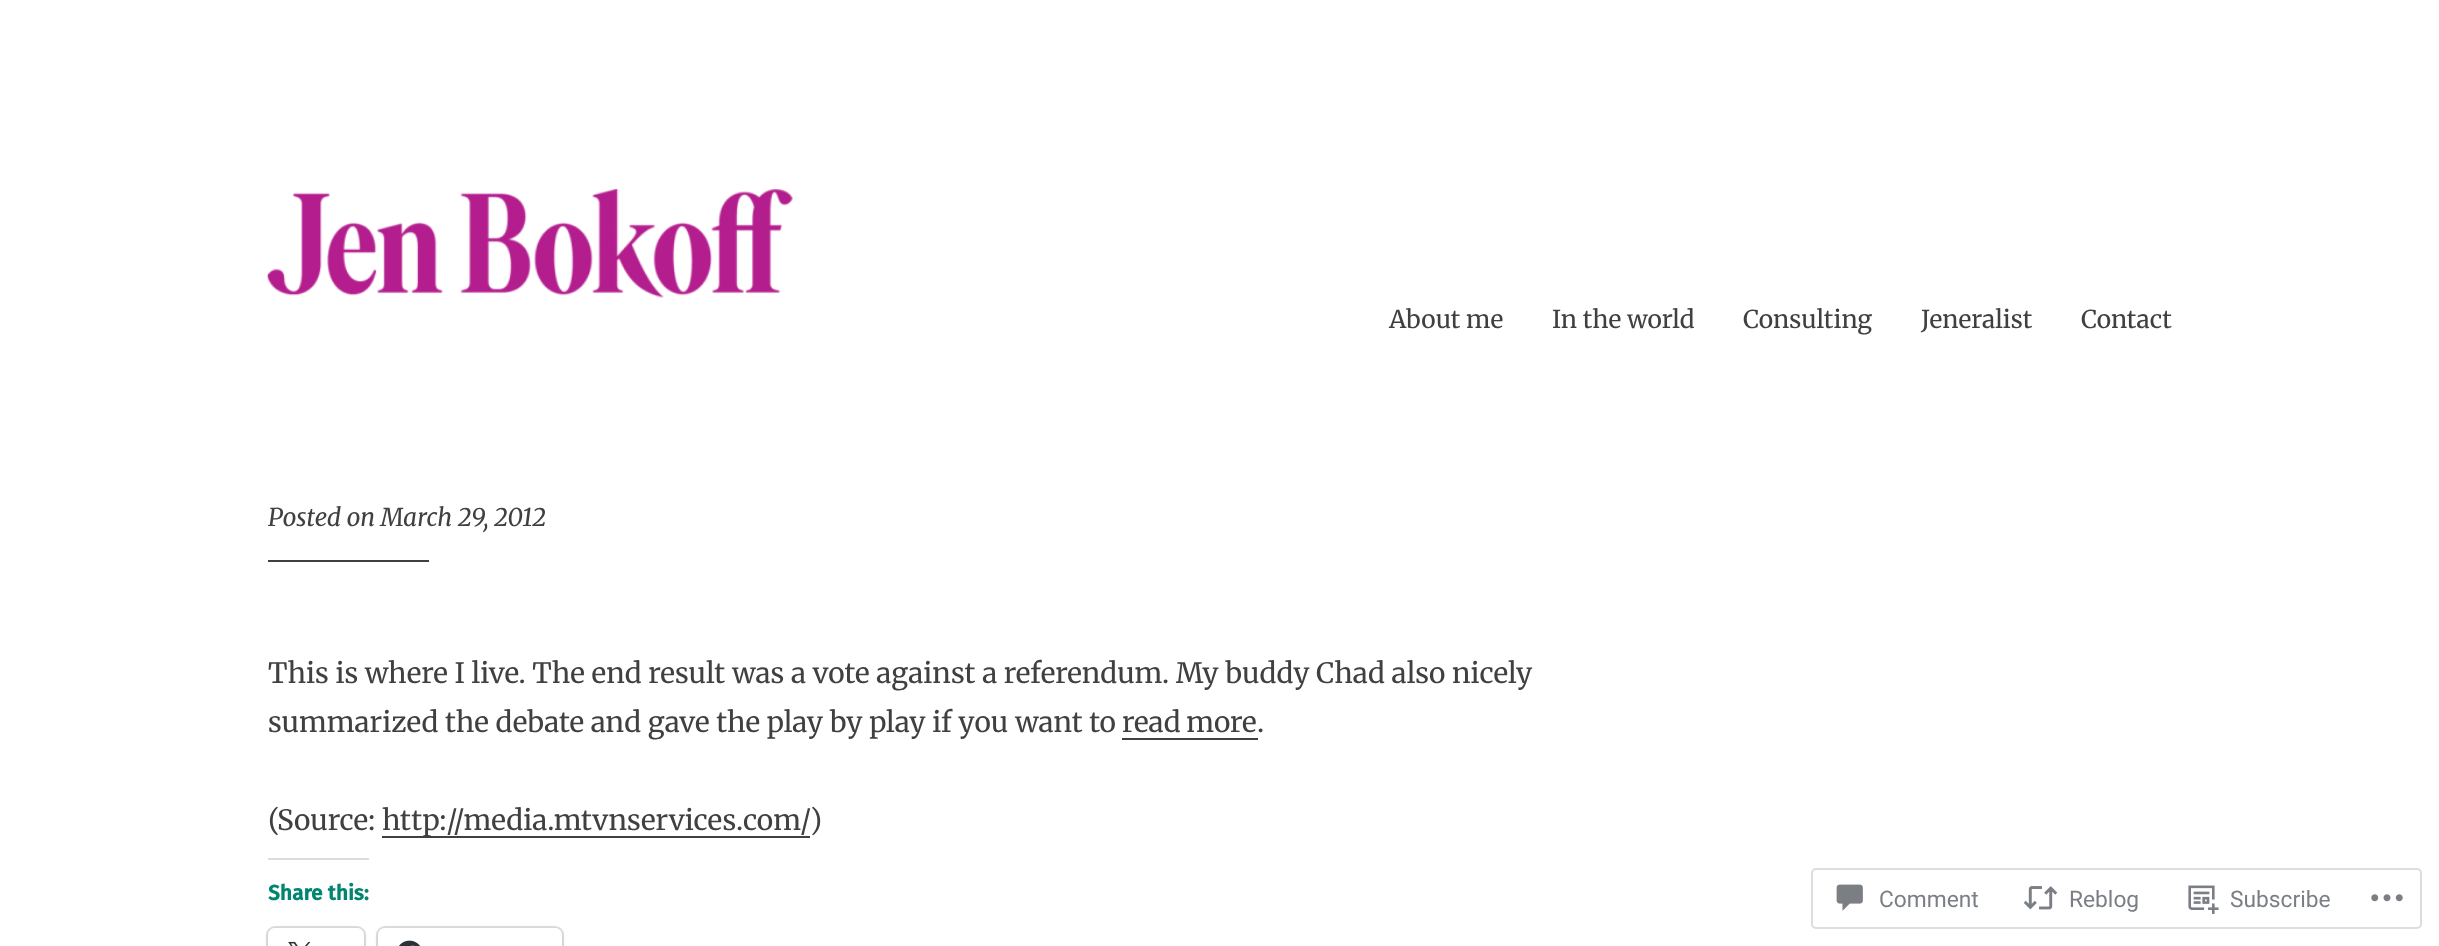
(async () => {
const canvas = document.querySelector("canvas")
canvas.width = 2439
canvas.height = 946
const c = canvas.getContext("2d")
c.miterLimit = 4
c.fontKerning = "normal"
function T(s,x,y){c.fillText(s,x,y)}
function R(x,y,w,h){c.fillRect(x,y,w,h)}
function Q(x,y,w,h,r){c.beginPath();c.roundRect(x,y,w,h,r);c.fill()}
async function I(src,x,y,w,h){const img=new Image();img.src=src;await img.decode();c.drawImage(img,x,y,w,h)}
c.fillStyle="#fff"
R(0,0,2439,946)
await I("1.png",267,189,526,109)
c.font="24.5px Merriweather"
c.fillStyle="#404040"
T("About me",1389,328)
T("In the world",1552,328)
T("Consulting",1743,328)
T("Jeneralist",1921,328)
T("Contact",2081,328)
c.font="italic 24.5px Merriweather"
T("Posted on March 29, 2012",268,526)
R(268,560,161,2)
c.font="28px Merriweather"
T("This is where I live. The end result was a vote against a referendum. My buddy Chad also nicely",268,683)
T("summarized the debate and gave the play by play if you want to",268,732)
c.wordSpacing="-1px"
T("read more",1122,732)
R(1122,738,136,2)
c.wordSpacing="0px"
T(".",1257,732)
T("(",268,830)
T("Source:",277,830)
R(382,836,428,2)
T("http://media.mtvnservices.com/",382,830)
T(")",810,830)
c.fillStyle="#dcdcde"
R(268,858,101,2)
c.font="bold 21px Fira Sans"
c.fillStyle="#00856f"
T("Share this:",268,900)
c.beginPath()
c.roundRect(267,927,98,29,8)
c.strokeStyle="#e0e0e0"
c.lineWidth=2
c.stroke()
c.fillStyle="#0000001f"
c.filter="blur(2px)"
c.beginPath()
c.roundRect(268,929,96,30,7)
c.fill()
c.filter="none"
c.fillStyle="#fff"
Q(268,928,96,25,7)
await I("2.png",288,941,23,5)
c.beginPath()
c.roundRect(377,927,186,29,8)
c.stroke()
c.fillStyle="#0000001f"
c.filter="blur(2px)"
c.beginPath()
c.roundRect(378,929,184,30,7)
c.fill()
c.filter="none"
c.fillStyle="#fff"
Q(378,928,184,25,7)
await I("3.png",399,940,21,6)
c.beginPath()
c.roundRect(1812,869,609,59,4)
c.strokeStyle="#dddddf"
c.stroke()
await I("4.png",1836,884,27,27)
c.font="22.75px Roboto"
c.fillStyle="#7b7f85"
T("Comment",1879,907)
await I("5.png",2023,886,35,24)
T("Reblog",2069,907)
await I("6.png",2188,885,31,29)
T("Subscribe",2230,907)
await I("7.png",2371,894,32,8)
})()
